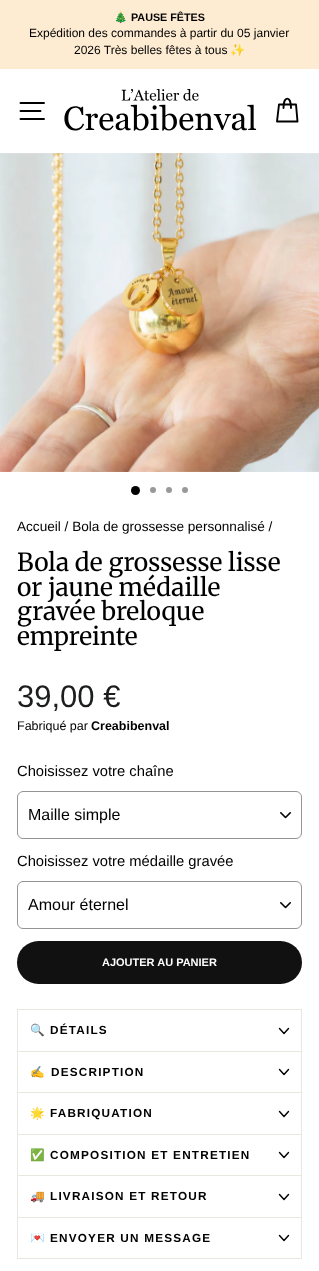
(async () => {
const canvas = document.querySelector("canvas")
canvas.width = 319
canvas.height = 1271
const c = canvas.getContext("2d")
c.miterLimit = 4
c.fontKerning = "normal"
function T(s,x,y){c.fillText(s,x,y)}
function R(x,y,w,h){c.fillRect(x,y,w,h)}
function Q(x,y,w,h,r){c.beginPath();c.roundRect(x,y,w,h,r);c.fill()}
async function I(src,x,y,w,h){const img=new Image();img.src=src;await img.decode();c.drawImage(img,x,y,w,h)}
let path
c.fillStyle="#fff"
R(0,0,319,1271)
c.fillStyle="#fdebd2"
R(0,0,319,69)
c.font="bold 10.75px Noto Color Emoji"
c.fillStyle="#000"
T("🎄",114,21)
c.font="bold 10.75px Liberation Sans"
T("PAUSE FÊTES",131,21)
c.font="12px Liberation Sans"
T("Expédition des commandes à partir du 05 janvier",29,37)
T("2026 Très belles fêtes à tous",74,54)
c.font="12px Noto Color Emoji"
T("✨",230,54)
path = new Path2D("M20.5 103h23.5m-23.5 8h20m-20 8h23.5")
c.strokeStyle="#000"
c.lineWidth=1.9
c.lineCap="round"
c.lineJoin="round"
c.stroke(path)
await I("1.png",64,89,193,42)
path = new Path2D("M283.5 108c0-12.5 7.5-12.5 7.5 0m-12-3.5h17l1.5 17h-20.5z")
c.stroke(path)
await I("2.png",0,153,319,319)
c.beginPath()
c.arc(135.5,490.5,4.5,0,7)
c.fill()
c.fillStyle="#999"
c.beginPath()
c.arc(153,490,3,0,7)
c.fill()
c.beginPath()
c.arc(169,490,3,0,7)
c.fill()
c.beginPath()
c.arc(185,490,3,0,7)
c.fill()
c.font="13.6px Liberation Sans"
c.fillStyle="#000"
T("Accueil / Bola de grossesse personnalisé /",17,531)
c.font="24.75px Merriweather"
T("Bola de grossesse lisse",17,571)
T("or jaune médaille",17,596)
T("gravée breloque",17,620)
T("empreinte",17,645)
c.font="31px Liberation Sans"
c.fillStyle="#1c1d1d"
T("39,00 €",17,707)
c.font="12.5px Liberation Sans"
c.fillStyle="#000"
T("Fabriqué par",17,730)
c.font="bold 12.5px Liberation Sans"
T("Creabibenval",91,730)
c.font="14.75px Liberation Sans"
T("Choisissez votre chaîne",17,776)
await I("3.png",280,812,11,7)
c.beginPath()
c.roundRect(17.5,791.5,284,47,5.5)
c.strokeStyle="#949494"
c.lineWidth=1
c.lineJoin="miter"
c.stroke()
c.font="16px Liberation Sans"
T("Maille simple",28,820)
c.font="14.75px Liberation Sans"
T("Choisissez votre médaille gravée",17,866)
await I("3.png",280,902,11,7)
c.beginPath()
c.roundRect(17.5,881.5,284,47,5.5)
c.stroke()
c.font="16px Liberation Sans"
T("Amour éternel",28,910)
c.fillStyle="#111"
Q(17,941,285,43,21.5)
c.font="bold 11px Liberation Sans"
c.fillStyle="#fff"
T("AJOUTER AU PANIER",102,966)
c.fillStyle="#e8e8e1"
R(17,1051,285,1)
R(17,1009,285,1)
R(301,1009,1,42)
R(17,1009,1,42)
c.letterSpacing="1.2px"
c.font="bold 11.75px Noto Color Emoji"
c.fillStyle="#000"
T("🔍",30,1034)
c.font="bold 11.75px Liberation Sans"
T("DÉTAILS",50,1034)
path = new Path2D("M279.5 1028.5l4.5 5l4.5-5")
c.strokeStyle="#000"
c.lineWidth=1.4
c.lineJoin="round"
c.stroke(path)
c.fillStyle="#e8e8e1"
R(17,1092,285,1)
R(301,1052,1,40)
R(17,1052,1,40)
c.font="bold 11.75px Noto Color Emoji"
c.fillStyle="#000"
T("✍️",30,1076)
c.font="bold 11.75px Liberation Sans"
T("DESCRIPTION",51,1076)
path = new Path2D("M279.5 1069.5l4.5 5l4.5-5")
c.stroke(path)
c.fillStyle="#e8e8e1"
R(17,1134,285,1)
R(301,1093,1,41)
R(17,1093,1,41)
c.font="bold 11.75px Noto Color Emoji"
c.fillStyle="#000"
T("🌟",30,1117)
c.font="bold 11.75px Liberation Sans"
T("FABRIQUATION",50,1117)
path = new Path2D("M279.5 1111.5l4.5 5l4.5-5")
c.stroke(path)
c.fillStyle="#e8e8e1"
R(17,1175,285,1)
R(301,1135,1,40)
R(17,1135,1,40)
c.font="bold 11.75px Noto Color Emoji"
c.fillStyle="#000"
T("✅",30,1159)
c.font="bold 11.75px Liberation Sans"
T("COMPOSITION ET ENTRETIEN",50,1159)
path = new Path2D("M279.5 1152.5l4.5 5l4.5-5")
c.stroke(path)
c.fillStyle="#e8e8e1"
R(17,1217,285,1)
R(301,1176,1,41)
R(17,1176,1,41)
c.font="bold 11.75px Noto Color Emoji"
c.fillStyle="#000"
T("🚚",30,1200)
c.font="bold 11.75px Liberation Sans"
T("LIVRAISON ET RETOUR",50,1200)
path = new Path2D("M279.5 1194.5l4.5 5l4.5-5")
c.stroke(path)
c.fillStyle="#e8e8e1"
R(17,1258,285,1)
R(301,1218,1,40)
R(17,1218,1,40)
c.font="bold 11.75px Noto Color Emoji"
c.fillStyle="#000"
T("💌",30,1242)
c.font="bold 11.75px Liberation Sans"
T("ENVOYER UN MESSAGE",50,1242)
path = new Path2D("M279.5 1235.5l4.5 5l4.5-5")
c.stroke(path)
})()
